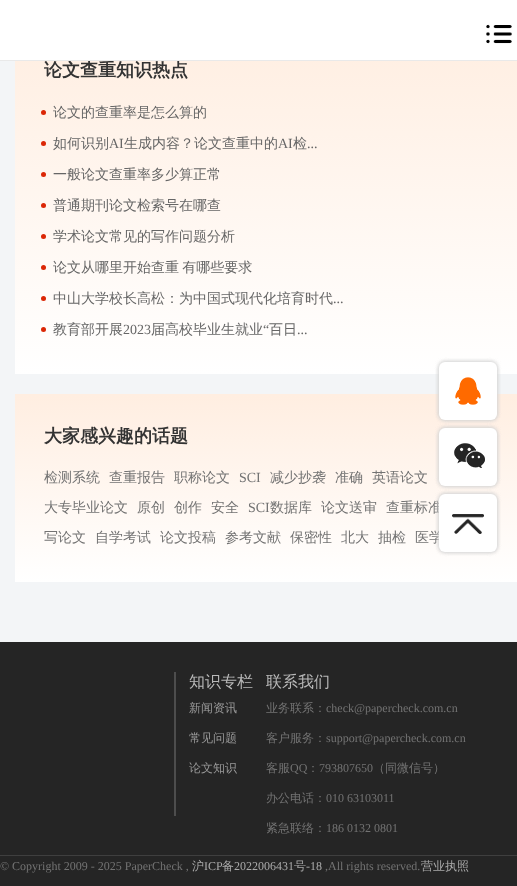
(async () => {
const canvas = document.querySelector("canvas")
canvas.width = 517
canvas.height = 886
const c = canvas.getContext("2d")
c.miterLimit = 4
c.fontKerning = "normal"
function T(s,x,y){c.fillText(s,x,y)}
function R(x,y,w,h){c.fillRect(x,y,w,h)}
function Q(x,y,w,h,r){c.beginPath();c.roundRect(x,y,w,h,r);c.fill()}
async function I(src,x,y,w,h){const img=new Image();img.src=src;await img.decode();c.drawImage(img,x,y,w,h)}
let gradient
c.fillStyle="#f3f5f7"
R(0,0,517,886)
c.fillStyle="#fff"
R(0,0,517,60)
gradient = c.createLinearGradient(266,374,266,28)
gradient.addColorStop(0,"#fff")
gradient.addColorStop(.99,"#ffeee1")
c.fillStyle = gradient
R(15,61,502,313)
c.font="bold 18px WenQuanYi Zen Hei"
c.fillStyle="#333"
T("论文查重知识热点",44,76)
c.fillStyle="#e9e9e9"
R(0,60,517,1)
await I("1.png",486,24,26,20)
c.fillStyle="#db2605"
c.beginPath()
c.arc(43.5,112.5,2.5,0,7)
c.fill()
c.font="500 14px WenQuanYi Zen Hei"
c.fillStyle="#666"
T("论文的查重率是怎么算的",53,117)
c.fillStyle="#db2605"
c.beginPath()
c.arc(43.5,143.5,2.5,0,7)
c.fill()
c.fillStyle="#666"
T("如何识别",53,148)
c.font="14px Liberation Serif"
T("AI",109,148)
c.font="500 14px WenQuanYi Zen Hei"
T("生成内容？论文查重中的",124,148)
c.font="14px Liberation Serif"
T("AI",278,148)
c.font="500 14px WenQuanYi Zen Hei"
T("检",293,148)
c.font="14px Liberation Serif"
T("...",307,148)
c.fillStyle="#db2605"
c.beginPath()
c.arc(43.5,174.5,2.5,0,7)
c.fill()
c.font="500 14px WenQuanYi Zen Hei"
c.fillStyle="#666"
T("一般论文查重率多少算正常",53,179)
c.fillStyle="#db2605"
c.beginPath()
c.arc(43.5,205.5,2.5,0,7)
c.fill()
c.fillStyle="#666"
T("普通期刊论文检索号在哪查",53,210)
c.fillStyle="#db2605"
c.beginPath()
c.arc(43.5,236.5,2.5,0,7)
c.fill()
c.fillStyle="#666"
T("学术论文常见的写作问题分析",53,241)
c.fillStyle="#db2605"
c.beginPath()
c.arc(43.5,267.5,2.5,0,7)
c.fill()
c.wordSpacing="-1px"
c.fillStyle="#666"
T("论文从哪里开始查重 有哪些要求",53,272)
c.fillStyle="#db2605"
c.beginPath()
c.arc(43.5,298.5,2.5,0,7)
c.fill()
c.wordSpacing="0px"
c.fillStyle="#666"
T("中山大学校长高松：为中国式现代化培育时代",53,303)
c.font="14px Liberation Serif"
T("...",333,303)
c.font="500 14px WenQuanYi Zen Hei"
T("教育部开展",53,334)
c.font="14px Liberation Serif"
T("2023",123,334)
c.font="500 14px WenQuanYi Zen Hei"
T("届高校毕业生就业",151,334)
c.font="14px Liberation Serif"
T("“",263,334)
c.font="500 14px WenQuanYi Zen Hei"
T("百日",269,334)
c.fillStyle="#db2605"
c.beginPath()
c.arc(43.5,329.5,2.5,0,7)
c.fill()
c.font="14px Liberation Serif"
c.fillStyle="#666"
T("...",297,334)
gradient = c.createLinearGradient(266,582,266,394)
gradient.addColorStop(0,"#fff")
gradient.addColorStop(.99,"#ffeee1")
c.fillStyle = gradient
R(15,394,502,188)
c.font="bold 18px WenQuanYi Zen Hei"
c.fillStyle="#333"
T("大家感兴趣的话题",44,442)
c.font="500 14px WenQuanYi Zen Hei"
c.fillStyle="#737373"
T("检测系统",44,482)
T("查重报告",109,482)
T("职称论文",174,482)
c.font="14px Liberation Serif"
T("SCI",239,482)
c.font="500 14px WenQuanYi Zen Hei"
T("减少抄袭",270,482)
T("准确",335,482)
T("英语论文",372,482)
T("大专毕业论文",44,512)
T("原创",137,512)
T("创作",174,512)
T("安全",211,512)
c.font="14px Liberation Serif"
T("SCI",248,512)
c.font="500 14px WenQuanYi Zen Hei"
T("数据库",270,512)
T("论文送审",321,512)
T("查重标准",386,512)
T("写论文",44,542)
T("自学考试",95,542)
T("论文投稿",160,542)
T("参考文献",225,542)
T("保密性",290,542)
T("北大",341,542)
T("抽检",378,542)
T("医学",415,542)
c.fillStyle="#d3d3d3"
c.filter="blur(2px)"
c.beginPath()
c.roundRect(439,362,58,58,6)
c.fill()
c.filter="none"
c.filter="blur(2px)"
c.beginPath()
c.roundRect(439,428,58,58,6)
c.fill()
c.filter="none"
c.filter="blur(2px)"
c.beginPath()
c.roundRect(439,494,58,58,6)
c.fill()
c.filter="none"
c.fillStyle="#252525"
R(0,642,517,244)
c.fillStyle="#d3d3d3"
c.filter="blur(2px)"
c.beginPath()
c.roundRect(439,362,58,58,6)
c.fill()
c.filter="none"
c.fillStyle="#fff"
Q(439,362,58,58,6)
await I("2.png",455,377,26,28)
c.fillStyle="#d3d3d3"
c.filter="blur(2px)"
c.beginPath()
c.roundRect(439,428,58,58,6)
c.fill()
c.filter="none"
c.fillStyle="#fff"
Q(439,428,58,58,6)
await I("3.png",454,443,31,25)
c.fillStyle="#d3d3d3"
c.filter="blur(2px)"
c.beginPath()
c.roundRect(439,494,58,58,6)
c.fill()
c.filter="none"
c.fillStyle="#fff"
Q(439,494,58,58,6)
await I("4.png",452,514,32,20)
c.fillStyle="#3f3f3f"
R(0,855,517,1)
c.fillStyle="#4d4d4d"
R(174,672,2,144)
c.font="500 16px WenQuanYi Zen Hei"
c.fillStyle="#b9b9b9"
T("知识专栏",189,687)
c.font="500 12px WenQuanYi Zen Hei"
c.fillStyle="#999"
T("新闻资讯",189,712)
T("常见问题",189,742)
T("论文知识",189,772)
c.font="500 16px WenQuanYi Zen Hei"
c.fillStyle="#b9b9b9"
T("联系我们",266,687)
c.font="500 12px WenQuanYi Zen Hei"
c.fillStyle="#737373"
T("业务联系：",266,712)
c.font="12px Liberation Serif"
T("check@papercheck.com.cn",326,712)
c.font="500 12px WenQuanYi Zen Hei"
T("客户服务：",266,742)
c.font="12px Liberation Serif"
T("support@papercheck.com.cn",326,742)
c.font="500 12px WenQuanYi Zen Hei"
T("客服",266,772)
c.font="12px Liberation Serif"
T("QQ",290,772)
c.font="500 12px WenQuanYi Zen Hei"
T("：",307,772)
c.font="12px Liberation Serif"
T("793807650",319,772)
c.font="500 12px WenQuanYi Zen Hei"
T("（同微信号）",373,772)
T("办公电话：",266,802)
c.font="12px Liberation Serif"
T("010 63103011",326,802)
c.font="500 12px WenQuanYi Zen Hei"
T("紧急联络：",266,832)
c.font="12px Liberation Serif"
T("186 0132 0801",326,832)
T("© Copyright 2009 - 2025 PaperCheck ,",0,870)
c.font="500 12px WenQuanYi Zen Hei"
c.fillStyle="#aaa"
T("沪",192,870)
c.font="12px Liberation Serif"
T("ICP",204,870)
c.font="500 12px WenQuanYi Zen Hei"
T("备",222,870)
c.font="12px Liberation Serif"
T("2022006431",234,870)
c.font="500 12px WenQuanYi Zen Hei"
T("号",294,870)
c.font="12px Liberation Serif"
T("-18",306,870)
c.fillStyle="#737373"
T(",All rights reserved.",325,870)
c.font="500 12px WenQuanYi Zen Hei"
c.fillStyle="#aaa"
T("营业执照",421,870)
})()
